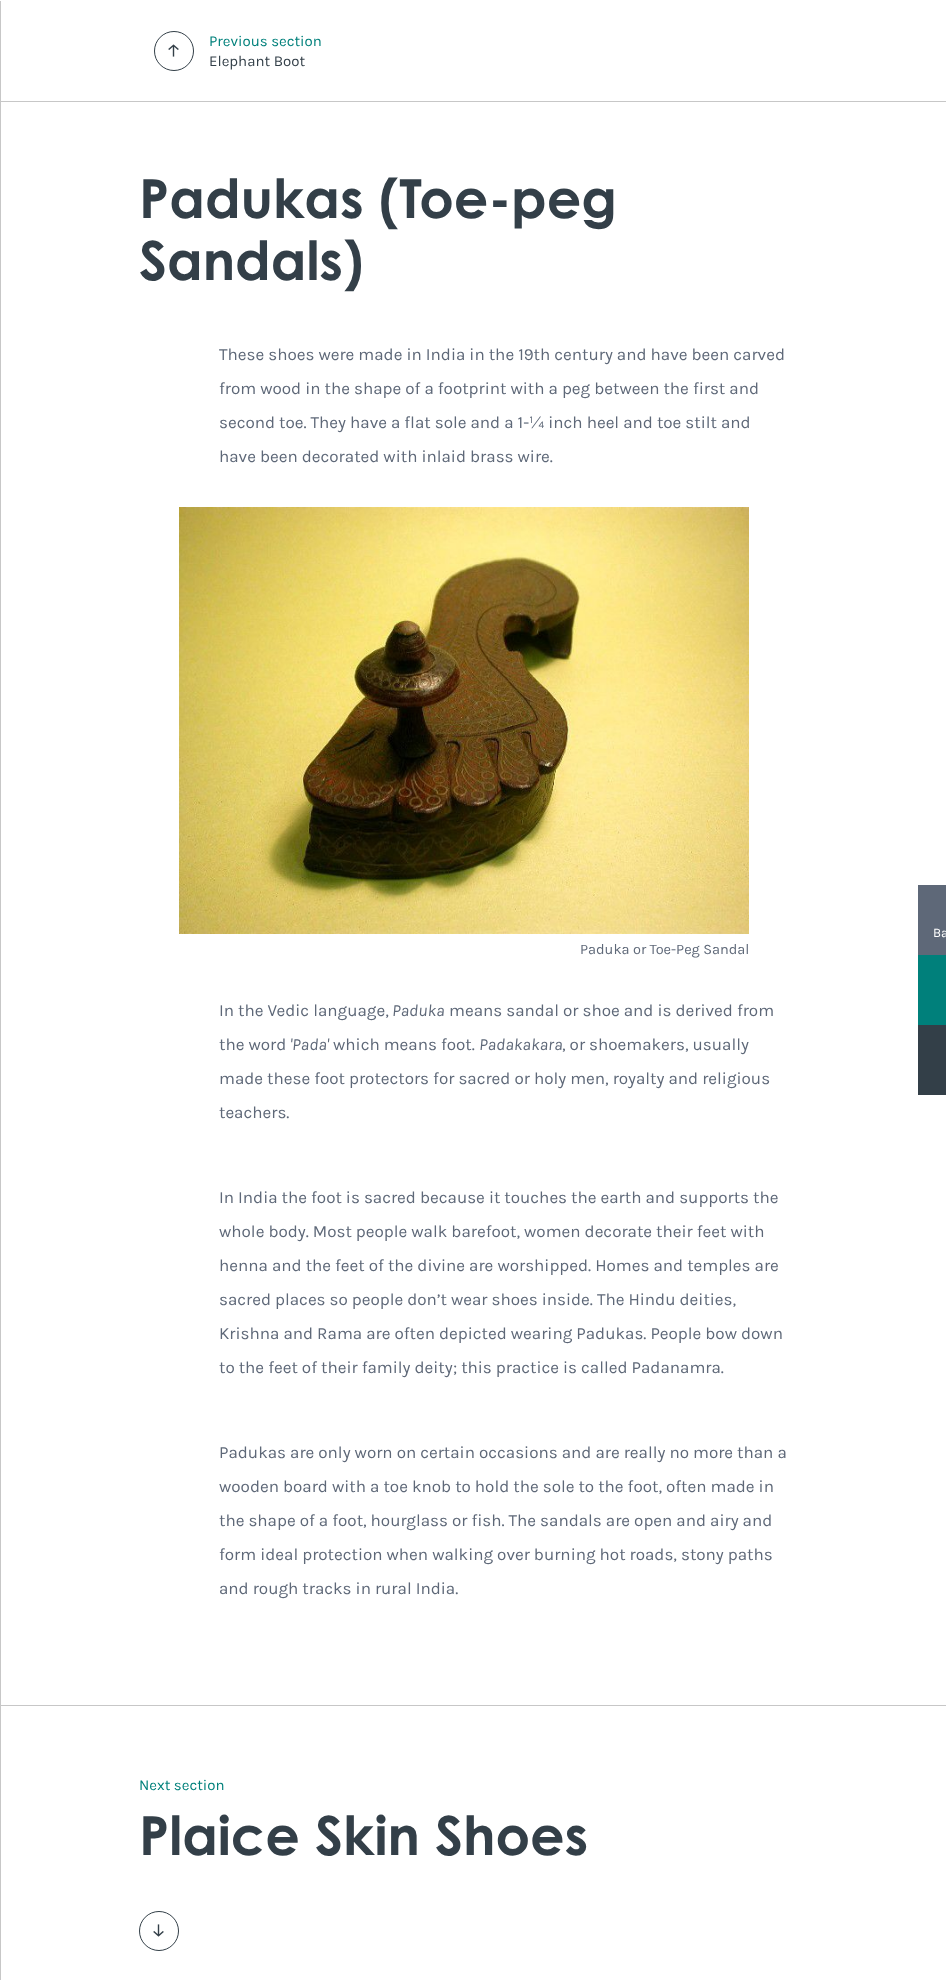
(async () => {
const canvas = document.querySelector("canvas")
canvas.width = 946
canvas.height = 1980
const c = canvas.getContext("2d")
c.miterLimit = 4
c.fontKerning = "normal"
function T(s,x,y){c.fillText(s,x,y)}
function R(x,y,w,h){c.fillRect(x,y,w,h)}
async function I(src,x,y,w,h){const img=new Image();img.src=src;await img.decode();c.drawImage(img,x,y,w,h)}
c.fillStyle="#fff"
R(0,0,946,1980)
c.fillStyle="#c7c7c7"
R(0,1,1,1979)
R(1,101,945,1)
c.beginPath()
c.arc(174,51,19.5,0,7)
c.strokeStyle="#333f48"
c.stroke()
await I("1.png",168,44,11,13)
c.font="15px Karla"
c.fillStyle="#00807b"
T("Previous section",209,46)
c.fillStyle="#333f48"
T("Elephant Boot",209,66)
c.font="54px Century Gothic"
T("Padukas (Toe-peg",139,218)
T("Sandals)",139,280)
c.font="17px Karla"
c.fillStyle="#5e6878"
T("These shoes were made in India in the 19th century and have been carved",219,360)
T("from wood in the shape of a footprint with a peg between the first and",219,394)
T("second toe. They have a flat sole and a 1-¼ inch heel and toe stilt and",219,428)
T("have been decorated with inlaid brass wire.",219,462)
await I("2.png",179,507,570,427)
c.font="14.5px Karla"
T("Paduka or Toe-Peg Sandal",580,954)
c.font="17px Karla"
T("In the Vedic language,",219,1016)
c.font="italic 17px Karla"
T("Paduka",392,1016)
c.font="17px Karla"
T("means sandal or shoe and is derived from",449,1016)
T("the word",219,1050)
c.font="italic 17px Karla"
T("'Pada'",290,1050)
c.font="17px Karla"
T("which means foot.",333,1050)
c.font="italic 17px Karla"
T("Padakakara",479,1050)
c.font="17px Karla"
T(", or shoemakers, usually",562,1050)
T("made these foot protectors for sacred or holy men, royalty and religious",219,1084)
T("teachers.",219,1118)
T("In India the foot is sacred because it touches the earth and supports the",219,1203)
T("whole body. Most people walk barefoot, women decorate their feet with",219,1237)
T("henna and the feet of the divine are worshipped. Homes and temples are",219,1271)
T("sacred places so people don’t wear shoes inside. The Hindu deities,",219,1305)
T("Krishna and Rama are often depicted wearing Padukas. People bow down",219,1339)
T("to the feet of their family deity; this practice is called Padanamra.",219,1373)
T("Padukas are only worn on certain occasions and are really no more than a",219,1458)
T("wooden board with a toe knob to hold the sole to the foot, often made in",219,1492)
T("the shape of a foot, hourglass or fish. The sandals are open and airy and",219,1526)
T("form ideal protection when walking over burning hot roads, stony paths",219,1560)
T("and rough tracks in rural India.",219,1594)
c.fillStyle="#c7c7c7"
R(1,1705,945,1)
c.font="15px Karla"
c.fillStyle="#00807b"
T("Next section",139,1790)
c.font="54px Century Gothic"
c.fillStyle="#333f48"
T("Plaice Skin Shoes",139,1855)
c.beginPath()
c.arc(159,1931,19.5,0,7)
c.stroke()
await I("3.png",153,1924,11,13)
c.fillStyle="#5e6878"
R(918,885,28,70)
c.font="13px Karla"
c.fillStyle="#fff"
T("Ba",933,937)
c.fillStyle="#00807b"
R(918,955,28,70)
c.fillStyle="#333f48"
R(918,1025,28,70)
})()
